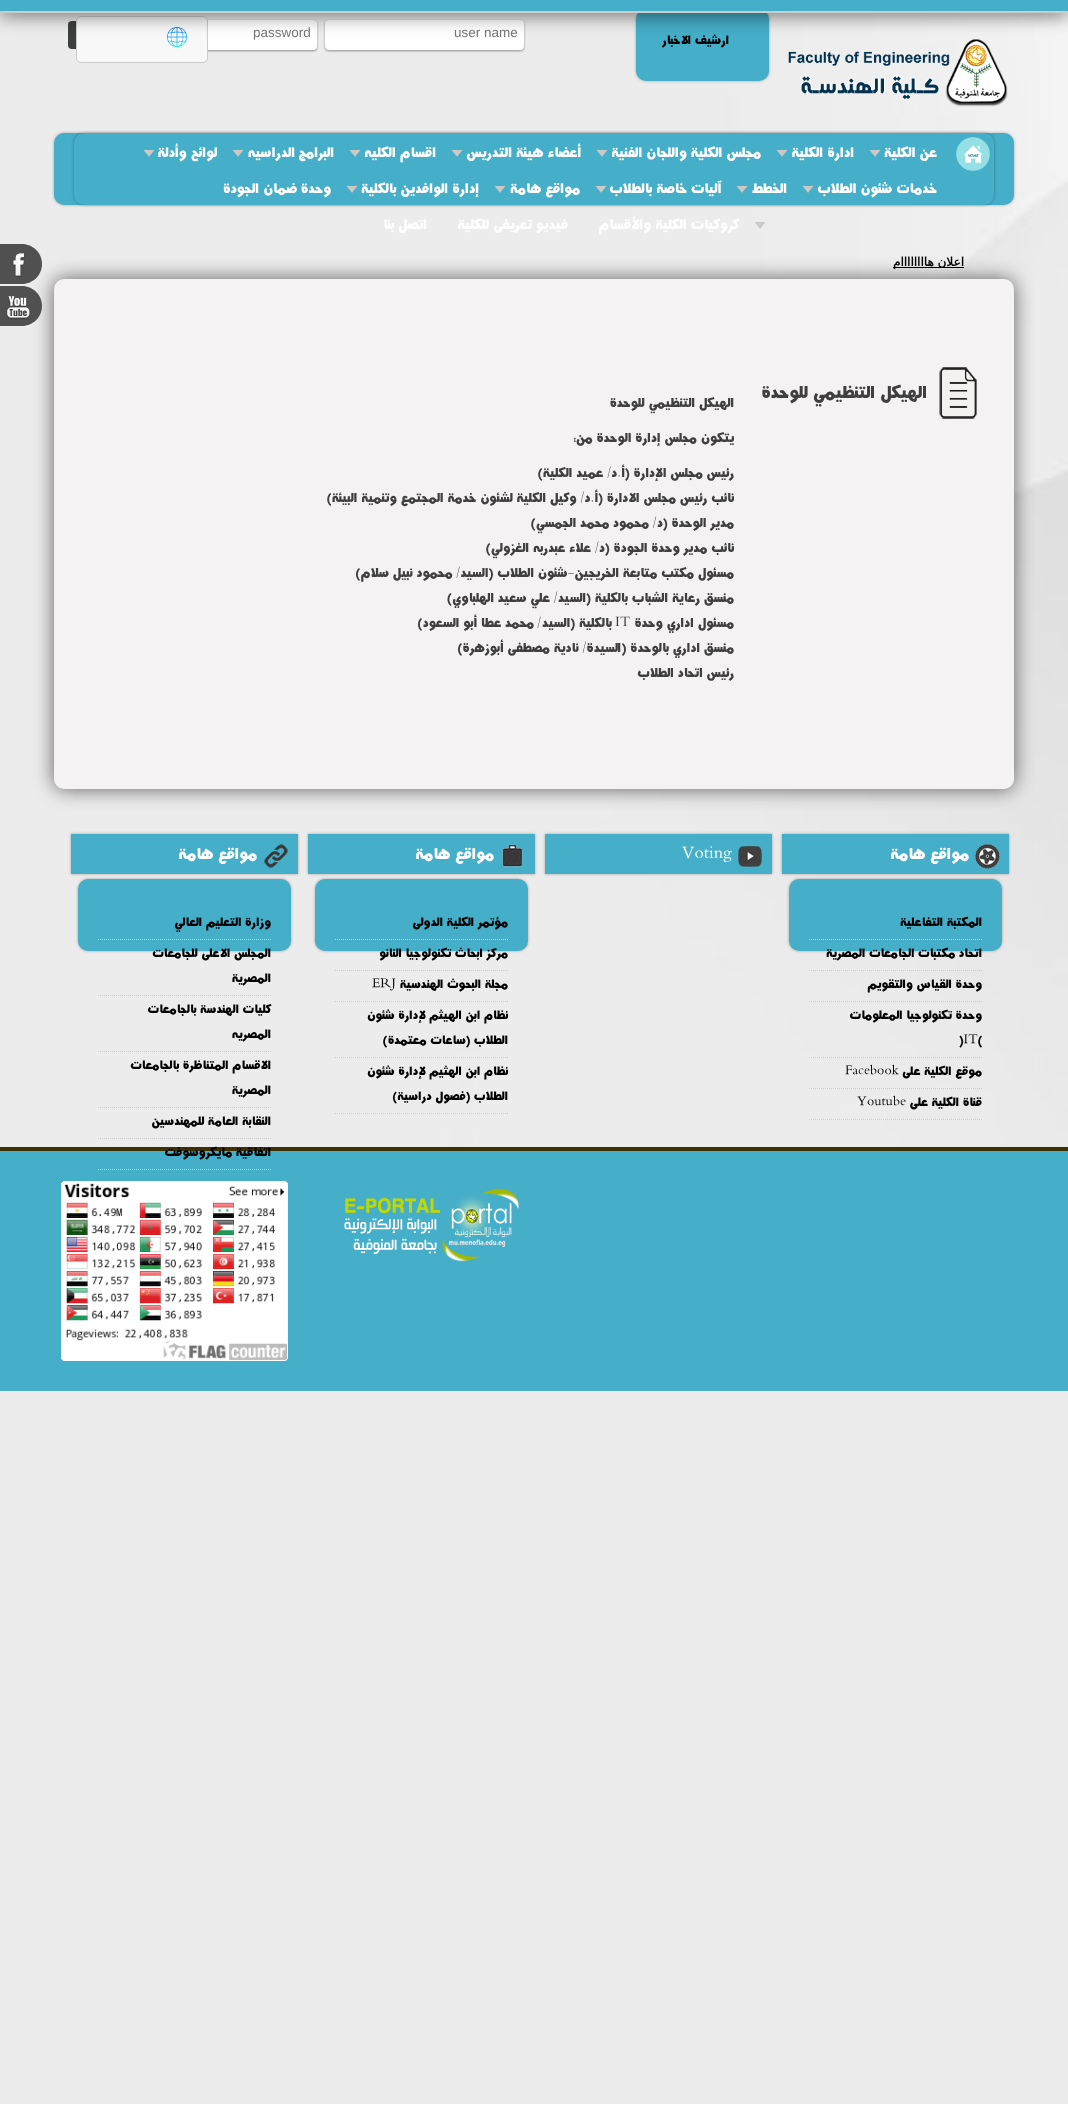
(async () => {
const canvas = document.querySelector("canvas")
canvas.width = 1068
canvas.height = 2104
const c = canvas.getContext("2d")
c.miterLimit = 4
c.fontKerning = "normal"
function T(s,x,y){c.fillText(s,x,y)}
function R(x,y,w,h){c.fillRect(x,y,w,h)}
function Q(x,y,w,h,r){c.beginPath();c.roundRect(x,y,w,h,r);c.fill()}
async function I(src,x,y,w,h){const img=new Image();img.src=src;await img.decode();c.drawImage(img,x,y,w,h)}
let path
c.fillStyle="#fff"
R(0,0,1068,2104)
await I("1.png",0,13,1068,2091)
await I("2.png",788,39,220,68)
c.fillStyle="#0000004d"
c.filter="blur(1.5px)"
c.beginPath()
c.roundRect(636,9,133,72,10)
c.fill()
c.filter="none"
c.fillStyle="#45aec8"
Q(636,9,133,72,10)
c.fillStyle="#00000066"
c.filter="blur(1px)"
c.beginPath()
c.roundRect(325,21,199,30,4)
c.fill()
c.filter="none"
c.fillStyle="#fff"
Q(325,20,199,30,4)
c.fillStyle="#00000066"
c.filter="blur(1px)"
c.beginPath()
c.roundRect(118,21,199,30,4)
c.fill()
c.filter="none"
c.fillStyle="#fff"
Q(118,20,199,30,4)
c.fillStyle="#3d3e3e"
Q(68,21,41,28,4)
c.fillStyle="#f8f8f8"
c.beginPath()
c.roundRect(76.5,16.5,131,46,4.5)
c.fill()
c.strokeStyle="#ccc"
c.stroke()
await I("3.png",167,27,20,20)
c.fillStyle="#000000bf"
c.filter="blur(10px)"
c.beginPath()
c.rect(0,0,1068,13)
c.fill()
c.filter="none"
c.fillStyle="#45aec8"
R(0,0,1068,11)
c.fillStyle="#ccc"
R(0,11,1068,2)
c.direction="rtl"
c.font="500 14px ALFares"
c.fillStyle="#000"
T("ارشيف الاخبار",729,44)
c.direction="ltr"
c.font="13.5px Liberation Sans"
c.fillStyle="#757575"
T("user name",454,37)
T("password",253,37)
c.fillStyle="#0000004d"
c.filter="blur(1.5px)"
c.beginPath()
c.roundRect(54,133,960,72,10)
c.fill()
c.filter="none"
c.fillStyle="#45aec8"
Q(54,133,960,72,10)
c.fillStyle="#0000004d"
c.filter="blur(1.5px)"
c.beginPath()
c.roundRect(74,133,920,72,10)
c.fill()
c.filter="none"
c.fillStyle="#45aec8"
Q(74,133,920,72,10)
await I("4.png",956,137,34,34)
await I("5.png",869,150,12,7)
c.direction="rtl"
c.font="500 16px ALFares"
c.fillStyle="#fff"
T("عن الكلية",937,157)
await I("5.png",776,150,12,7)
T("ادارة الكلية",854,157)
await I("5.png",596,150,12,7)
T("مجلس الكلية واللجان الفنية",761,157)
await I("5.png",451,150,12,7)
T("أعضاء هيئة التدريس",581,157)
await I("5.png",349,150,12,7)
T("اقسام الكليه",436,157)
await I("5.png",232,150,12,7)
T("البرامج الدراسيه",334,157)
await I("5.png",143,150,12,7)
T("لوائح وأدلة",217,157)
await I("5.png",802,186,12,7)
T("خدمات شئون الطلاب",937,193)
await I("5.png",736,186,12,7)
T("الخطط",787,193)
await I("5.png",595,186,12,7)
T("آليات خاصة بالطلاب",721,193)
await I("5.png",494,186,12,7)
T("مواقع هامة",580,193)
await I("5.png",346,186,12,7)
T("إدارة الوافدين بالكلية",479,193)
T("وحدة ضمان الجودة",331,193)
await I("6.png",754,222,12,7)
T("كروكيات الكلية والأقسام",739,229)
T("فيديو تعريفى للكلية",568,229)
T("اتصل بنا",427,229)
c.fillStyle="#00000099"
c.filter="blur(10px)"
c.beginPath()
c.roundRect(54,279,960,510,10)
c.fill()
c.filter="none"
c.fillStyle="#000"
R(893,267,71,1)
c.font="bold 12px DejaVu Sans"
T("اعلان هاااااااام",964,266)
c.fillStyle="#f4f2f2"
Q(54,279,960,510,10)
await I("7.png",939,367,38,52)
c.font="500 20px ALFares"
c.fillStyle="#3f3f3f"
T("الهيكل التنظيمي للوحدة",927,398)
c.font="500 15px ALFares"
T("الهيكل التنظيمي للوحدة",734,407)
T("يتكون مجلس إدارة الوحدة من:",734,442)
T("رئيس مجلس الإدارة (أ.د/ عميد الكلية)",734,477)
T("نائب رئيس مجلس الادارة (أ.د/ وكيل الكلية لشئون خدمة المجتمع وتنمية البيئة)",734,502)
T("مدير الوحدة (د/ محمود محمد الجمسي)",734,527)
T("نائب مدير وحدة الجودة (د/ علاء عبدربه الغزولي)",734,552)
T("مسئول مكتب متابعة الخريجين-شئون الطلاب (السيد/ محمود نبيل سلام)",734,577)
T("منسق رعاية الشباب بالكلية (السيد/ علي سعيد الهلباوي)",734,602)
T("مسئول اداري وحدة",734,627)
c.direction="ltr"
T("IT",615,627)
c.direction="rtl"
T("بالكلية (السيد",612,627)
c.direction="ltr"
T("/",537,627)
c.direction="rtl"
T("محمد عطا أبو السعود)",534,627)
T("منسق اداري بالوحدة (",734,652)
T("ا",621,652)
T("لسيدة/ نادية مصطفى أبوزهرة)",618,652)
T("رئيس اتحاد الطلاب",734,677)
c.fillStyle="#515050"
path = new Path2D("M-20 244h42c11 0 20 9 20 20c0 11-9 20-20 20h-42z")
c.fill(path)
await I("8.png",12,253,13,25)
path = new Path2D("M-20 286h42c11 0 20 9 20 20c0 11-9 20-20 20h-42z")
c.fill(path)
await I("9.png",6,296,24,24)
c.fillStyle="#0000004d"
c.filter="blur(1.5px)"
c.beginPath()
c.rect(782,834,227,40)
c.fill()
c.filter="none"
c.fillStyle="#45aec8"
R(782,834,227,40)
await I("10.png",974,844,26,25)
c.font="500 18px ALFares"
c.fillStyle="#fff"
T("مواقع هامة",969,859)
c.fillStyle="#0000004d"
c.filter="blur(1.5px)"
c.beginPath()
c.roundRect(789,879,213,72,10)
c.fill()
c.filter="none"
c.fillStyle="#45aec8"
Q(789,879,213,72,10)
path = new Path2D("M809 939.5h173")
c.setLineDash([1,1])
c.stroke(path)
c.font="500 14px ALFares"
c.fillStyle="#000"
T("المكتبة التفاعلية",982,926)
path = new Path2D("M809 970.5h173")
c.stroke(path)
T("اتحاد مكتبات الجامعات المصرية",982,957)
path = new Path2D("M809 1001.5h173")
c.stroke(path)
T("وحدة القياس والتقويم",982,988)
path = new Path2D("M809 1057.5h173")
c.stroke(path)
T("وحدة تكنولوجيا المعلومات",982,1019)
c.direction="ltr"
T(")IT(",959,1044)
path = new Path2D("M809 1088.5h173")
c.stroke(path)
c.direction="rtl"
T("موقع الكلية على",982,1075)
c.direction="ltr"
T("Facebook",845,1075)
path = new Path2D("M809 1119.5h173")
c.stroke(path)
c.direction="rtl"
T("قناة الكلية على",982,1106)
c.direction="ltr"
T("Youtube",857,1106)
c.fillStyle="#0000004d"
c.filter="blur(1.5px)"
c.beginPath()
c.rect(545,834,227,40)
c.fill()
c.filter="none"
c.fillStyle="#45aec8"
R(545,834,227,40)
await I("11.png",738,846,24,21)
c.font="500 18px ALFares"
c.fillStyle="#fff"
T("Voting",682,859)
c.fillStyle="#0000004d"
c.filter="blur(1.5px)"
c.beginPath()
c.rect(308,834,227,40)
c.fill()
c.filter="none"
c.fillStyle="#45aec8"
R(308,834,227,40)
await I("12.png",502,844,21,23)
c.direction="rtl"
c.fillStyle="#fff"
T("مواقع هامة",494,859)
c.fillStyle="#0000004d"
c.filter="blur(1.5px)"
c.beginPath()
c.roundRect(315,879,213,72,10)
c.fill()
c.filter="none"
c.fillStyle="#45aec8"
Q(315,879,213,72,10)
path = new Path2D("M335 939.5h173")
c.stroke(path)
c.font="500 14px ALFares"
c.fillStyle="#000"
T("مؤتمر الكلية الدولى",508,926)
path = new Path2D("M335 970.5h173")
c.stroke(path)
T("مركز ابحاث تكنولوجيا النانو",508,957)
path = new Path2D("M335 1001.5h173")
c.stroke(path)
T("مجلة البحوث الهندسية",508,988)
c.direction="ltr"
T("ERJ",372,988)
path = new Path2D("M335 1057.5h173")
c.stroke(path)
c.direction="rtl"
T("نظام ابن الهيثم لإدارة شئون",508,1019)
T("الطلاب (ساعات معتمدة)",508,1044)
path = new Path2D("M335 1113.5h173")
c.stroke(path)
T("نظام ابن الهثيم لإدارة شئون",508,1075)
T("الطلاب (فصول دراسية)",508,1100)
c.fillStyle="#0000004d"
c.filter="blur(1.5px)"
c.beginPath()
c.rect(71,834,227,40)
c.fill()
c.filter="none"
c.fillStyle="#45aec8"
R(71,834,227,40)
await I("13.png",264,844,24,24)
c.font="500 18px ALFares"
c.fillStyle="#fff"
T("مواقع هامة",257,859)
c.fillStyle="#0000004d"
c.filter="blur(1.5px)"
c.beginPath()
c.roundRect(78,879,213,72,10)
c.fill()
c.filter="none"
c.fillStyle="#45aec8"
Q(78,879,213,72,10)
path = new Path2D("M98 939.5h173")
c.stroke(path)
c.font="500 14px ALFares"
c.fillStyle="#000"
T("وزارة التعليم العالي",271,926)
path = new Path2D("M98 995.5h173")
c.stroke(path)
T("المجلس الاعلى للجامعات",271,957)
T("المصرية",271,982)
path = new Path2D("M98 1051.5h173")
c.stroke(path)
T("كليات الهندسة بالجامعات",271,1013)
T("المصريه",271,1038)
path = new Path2D("M98 1107.5h173")
c.stroke(path)
T("الاقسام المتناظرة بالجامعات",271,1069)
T("المصرية",271,1094)
path = new Path2D("M98 1138.5h173")
c.stroke(path)
T("النقابة العامة للمهندسين",271,1125)
c.fillStyle="#45aec8"
R(0,1151,1068,240)
path = new Path2D("M98 1169.5h173")
c.stroke(path)
c.fillStyle="#3c3004"
R(0,1147,1068,4)
c.fillStyle="#000"
T("اتفاقية مايكروسوفت",271,1156)
await I("14.png",344,1188,175,74)
await I("15.png",61,1181,227,180)
})()
